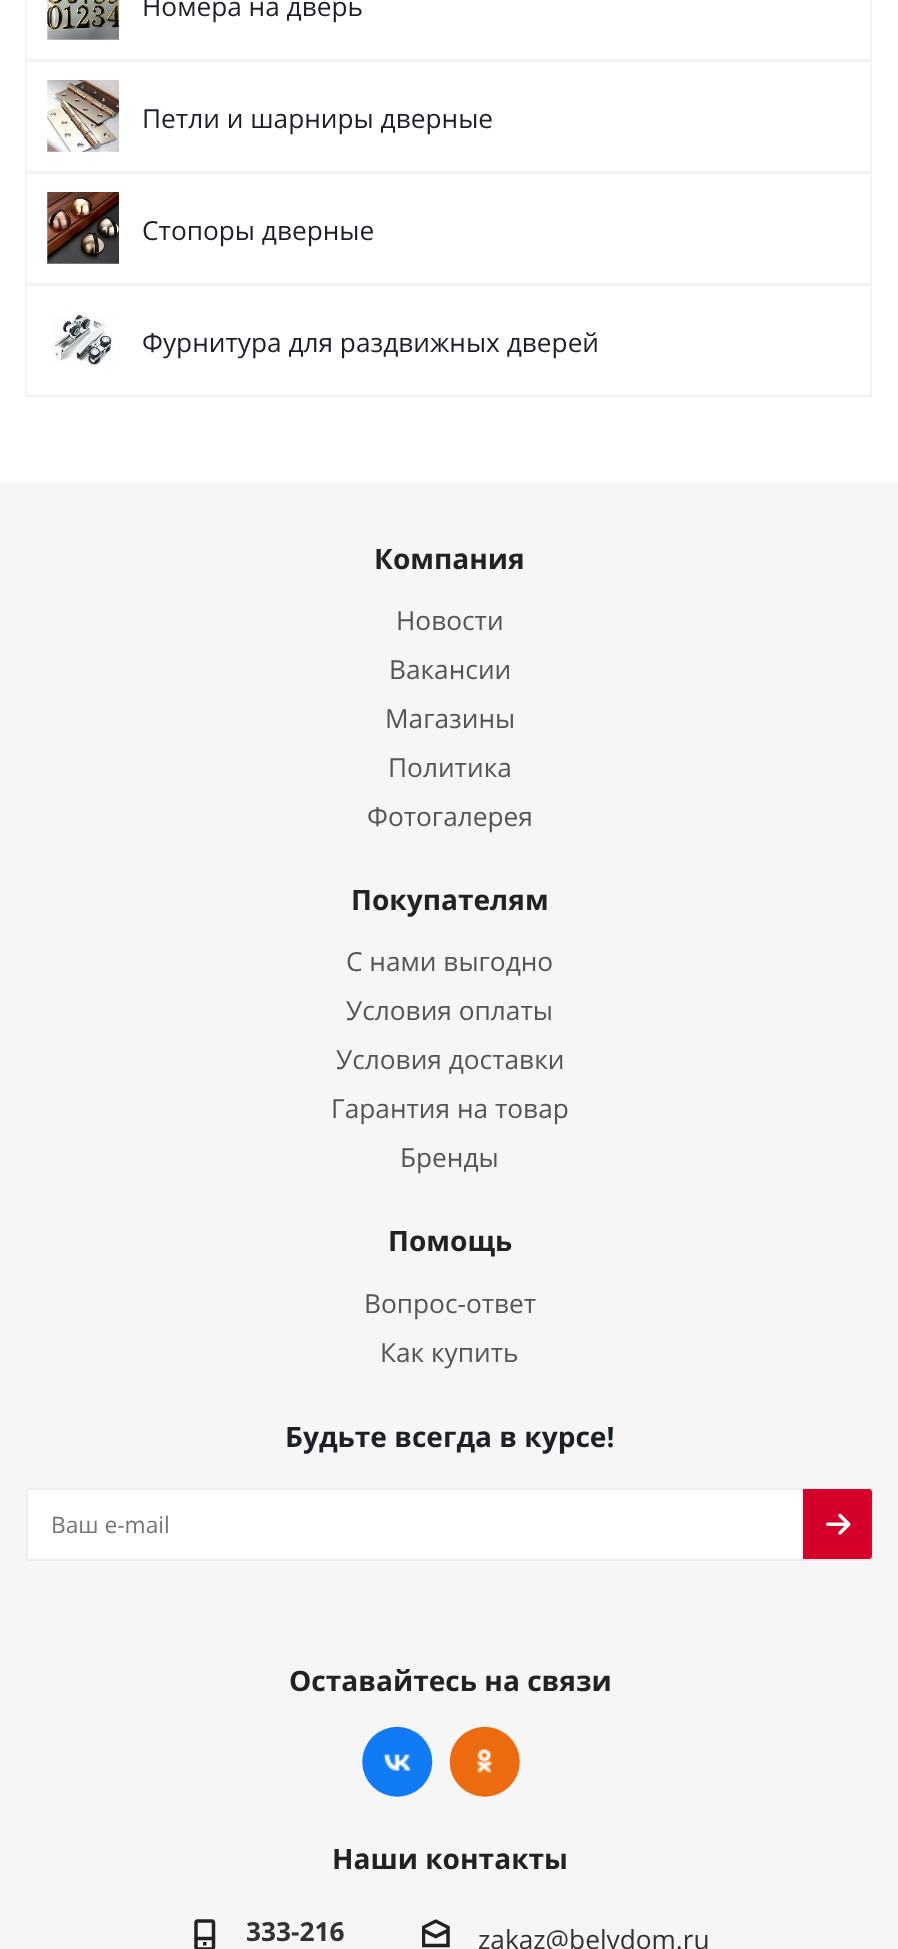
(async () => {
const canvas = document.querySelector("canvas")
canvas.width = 898
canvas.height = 1949
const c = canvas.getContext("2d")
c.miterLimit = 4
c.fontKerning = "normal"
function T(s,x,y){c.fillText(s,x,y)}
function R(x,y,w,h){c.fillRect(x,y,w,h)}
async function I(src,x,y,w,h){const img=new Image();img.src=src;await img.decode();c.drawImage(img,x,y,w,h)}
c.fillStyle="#fff"
R(0,0,898,1949)
c.strokeStyle="#f2f2f2"
c.lineWidth=2
c.strokeRect(26,-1,845,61)
await I("1.png",47,0,72,40)
c.font="26.25px Open Sans"
c.fillStyle="#1d2029"
T("Номера на дверь",142,16)
c.strokeRect(26,61,845,111)
await I("2.png",47,80,72,72)
T("Петли и шарниры дверные",142,128)
c.strokeRect(26,173,845,111)
await I("3.png",47,192,72,72)
T("Стопоры дверные",142,240)
c.strokeRect(26,285,845,111)
await I("4.png",52,313,62,53)
T("Фурнитура для раздвижных дверей",142,352)
c.fillStyle="#f6f6f7"
R(0,483,898,1466)
c.font="bold 28.1px Open Sans"
c.fillStyle="#222"
T("Компания",374,569)
c.font="26.25px Open Sans"
c.fillStyle="#555"
T("Новости",396,630)
T("Вакансии",389,679)
T("Магазины",385,728)
T("Политика",388,777)
T("Фотогалерея",367,826)
c.font="bold 28.1px Open Sans"
c.fillStyle="#222"
T("Покупателям",351,910)
c.font="26.25px Open Sans"
c.fillStyle="#555"
T("С нами выгодно",346,971)
T("Условия оплаты",346,1020)
T("Условия доставки",336,1069)
T("Гарантия на товар",331,1118)
T("Бренды",400,1167)
c.font="bold 28.1px Open Sans"
c.fillStyle="#222"
T("Помощь",388,1251)
c.font="26.25px Open Sans"
c.fillStyle="#555"
T("Вопрос-ответ",364,1313)
T("Как купить",380,1362)
c.font="bold 28.1px Open Sans"
c.fillStyle="#1d2029"
T("Будьте всегда в курсе!",285,1447)
c.fillStyle="#fff"
c.beginPath()
c.roundRect(27,1489,845,71,3)
c.fill()
c.strokeStyle="#eee"
c.stroke()
c.font="22.75px Open Sans"
c.fillStyle="#757575"
T("Ваш e-mail",51,1533)
c.fillStyle="#d40029"
c.beginPath()
c.roundRect(803,1489,69,70,[0,4,4,0])
c.fill()
await I("5.png",826,1513,25,22)
c.beginPath()
c.roundRect(804,1490,67,68,[0,3,3,0])
c.strokeStyle="#de002b"
c.stroke()
c.font="bold 28.1px Open Sans"
c.fillStyle="#222"
T("Оставайтесь на связи",289,1691)
await I("6.png",362,1726,71,71)
await I("7.png",449,1726,71,71)
T("Наши контакты",332,1869)
await I("8.png",194,1919,22,30)
c.font="bold 26.25px Open Sans"
c.fillStyle="#333"
T("333-216",246,1941)
await I("9.png",422,1919,28,29)
c.font="26.25px Open Sans"
T("zakaz@belydom.ru",478,1949)
})()
